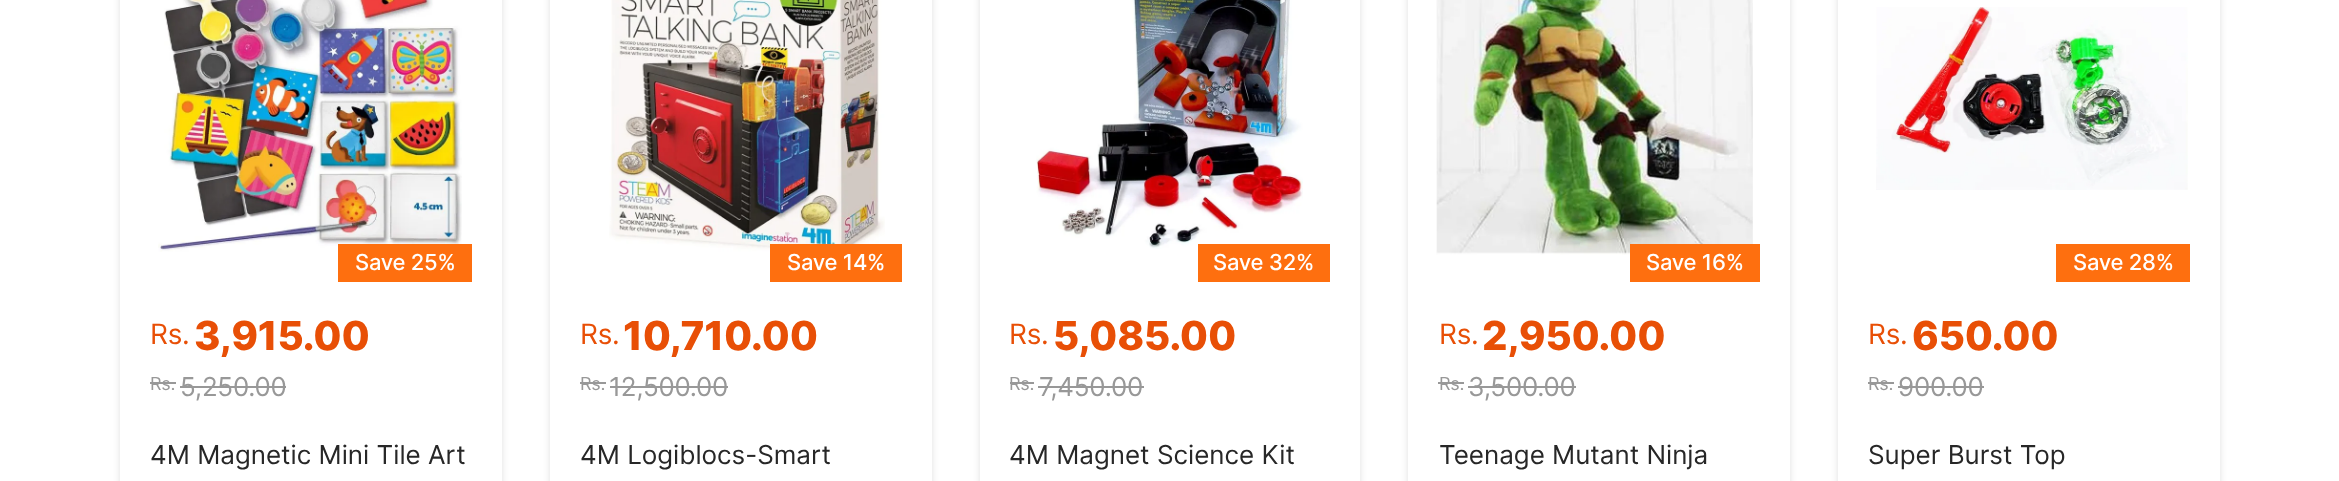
(async () => {
const canvas = document.querySelector("canvas")
canvas.width = 2339
canvas.height = 481
const c = canvas.getContext("2d")
c.miterLimit = 4
c.fontKerning = "normal"
function T(s,x,y){c.fillText(s,x,y)}
function R(x,y,w,h){c.fillRect(x,y,w,h)}
async function I(src,x,y,w,h){const img=new Image();img.src=src;await img.decode();c.drawImage(img,x,y,w,h)}
let path
c.fillStyle="#fff"
R(0,0,2339,481)
c.save()
path = new Path2D("M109 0h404v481h-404zm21-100h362c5.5 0 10 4.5 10 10v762c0 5.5-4.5 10-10 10h-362c-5.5 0-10-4.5-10-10v-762c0-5.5 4.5-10 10-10z")
c.clip(path,"evenodd")
c.fillStyle="#00000033"
c.filter="blur(4px)"
c.beginPath()
c.roundRect(122,-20,378,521,8)
c.fill()
c.filter="none"
c.restore()
await I("1.png",158,0,304,252)
c.fillStyle="#fe6f0f"
R(338,244,134,38)
c.letterSpacing="-0.25px"
c.font="500 22px Inter"
c.fillStyle="#fff"
T("Save 25%",355,270)
c.font="28px Inter"
c.fillStyle="#e84f06"
T("Rs.",150,344)
c.font="800 40px Inter"
T("3,915.00",194,350)
c.font="18px Inter"
c.fillStyle="#989898"
T("Rs.",150,390)
R(150,382,26,2)
c.font="26px Inter"
T("5,250.00",180,396)
R(180,386,106,2)
c.letterSpacing="0px"
c.fillStyle="#272727"
T("4M Magnetic Mini Tile Art",150,464)
c.save()
path = new Path2D("M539 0h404v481h-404zm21-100h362c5.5 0 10 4.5 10 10v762c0 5.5-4.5 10-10 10h-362c-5.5 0-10-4.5-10-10v-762c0-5.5 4.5-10 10-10z")
c.clip(path,"evenodd")
c.fillStyle="#00000033"
c.filter="blur(4px)"
c.beginPath()
c.roundRect(552,-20,378,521,8)
c.fill()
c.filter="none"
c.restore()
await I("2.png",609,0,276,254)
c.fillStyle="#fe6f0f"
R(770,244,132,38)
c.letterSpacing="-0.25px"
c.font="500 22px Inter"
c.fillStyle="#fff"
T("Save 14%",787,270)
c.font="28px Inter"
c.fillStyle="#e84f06"
T("Rs.",580,344)
c.font="800 40px Inter"
T("10,710.00",623,350)
c.font="18px Inter"
c.fillStyle="#989898"
T("Rs.",580,390)
R(580,382,26,2)
c.font="26px Inter"
T("12,500.00",609,396)
R(610,386,118,2)
c.letterSpacing="0px"
c.fillStyle="#272727"
T("4M Logiblocs-Smart",580,464)
c.save()
path = new Path2D("M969 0h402v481h-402zm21-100h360c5.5 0 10 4.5 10 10v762c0 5.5-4.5 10-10 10h-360c-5.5 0-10-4.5-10-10v-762c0-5.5 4.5-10 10-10z")
c.clip(path,"evenodd")
c.fillStyle="#00000033"
c.filter="blur(4px)"
c.beginPath()
c.roundRect(982,-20,376,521,8)
c.fill()
c.filter="none"
c.restore()
await I("3.png",1036,0,267,249)
c.fillStyle="#fe6f0f"
R(1198,244,132,38)
c.letterSpacing="-0.25px"
c.font="500 22px Inter"
c.fillStyle="#fff"
T("Save 32%",1213,270)
c.font="28px Inter"
c.fillStyle="#e84f06"
T("Rs.",1009,344)
c.font="800 40px Inter"
T("5,085.00",1053,350)
c.font="18px Inter"
c.fillStyle="#989898"
T("Rs.",1009,390)
R(1010,382,24,2)
c.font="26px Inter"
T("7,450.00",1039,396)
R(1038,386,106,2)
c.letterSpacing="0px"
c.fillStyle="#272727"
T("4M Magnet Science Kit",1009,464)
c.save()
path = new Path2D("M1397 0h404v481h-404zm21-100h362c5.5 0 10 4.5 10 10v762c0 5.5-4.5 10-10 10h-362c-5.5 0-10-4.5-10-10v-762c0-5.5 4.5-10 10-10z")
c.clip(path,"evenodd")
c.fillStyle="#00000033"
c.filter="blur(4px)"
c.beginPath()
c.roundRect(1410,-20,378,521,8)
c.fill()
c.filter="none"
c.restore()
await I("4.png",1436,0,317,255)
c.fillStyle="#fe6f0f"
R(1630,244,130,38)
c.letterSpacing="-0.25px"
c.font="500 22px Inter"
c.fillStyle="#fff"
T("Save 16%",1646,270)
c.font="28px Inter"
c.fillStyle="#e84f06"
T("Rs.",1439,344)
c.font="800 40px Inter"
T("2,950.00",1482,350)
c.font="18px Inter"
c.fillStyle="#989898"
T("Rs.",1439,390)
R(1438,382,26,2)
c.font="26px Inter"
T("3,500.00",1468,396)
R(1468,386,108,2)
c.letterSpacing="0px"
c.fillStyle="#272727"
T("Teenage Mutant Ninja",1439,464)
c.save()
path = new Path2D("M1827 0h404v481h-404zm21-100h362c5.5 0 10 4.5 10 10v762c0 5.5-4.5 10-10 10h-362c-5.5 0-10-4.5-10-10v-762c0-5.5 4.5-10 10-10z")
c.clip(path,"evenodd")
c.fillStyle="#00000033"
c.filter="blur(4px)"
c.beginPath()
c.roundRect(1840,-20,378,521,8)
c.fill()
c.filter="none"
c.restore()
await I("5.png",1876,7,312,183)
c.fillStyle="#fe6f0f"
R(2056,244,134,38)
c.letterSpacing="-0.25px"
c.font="500 22px Inter"
c.fillStyle="#fff"
T("Save 28%",2073,270)
c.font="28px Inter"
c.fillStyle="#e84f06"
T("Rs.",1868,344)
c.font="800 40px Inter"
T("650.00",1912,350)
c.font="18px Inter"
c.fillStyle="#989898"
T("Rs.",1868,390)
R(1868,382,26,2)
c.font="26px Inter"
T("900.00",1898,396)
R(1898,386,86,2)
c.letterSpacing="0px"
c.fillStyle="#272727"
T("Super Burst Top",1868,464)
})()
